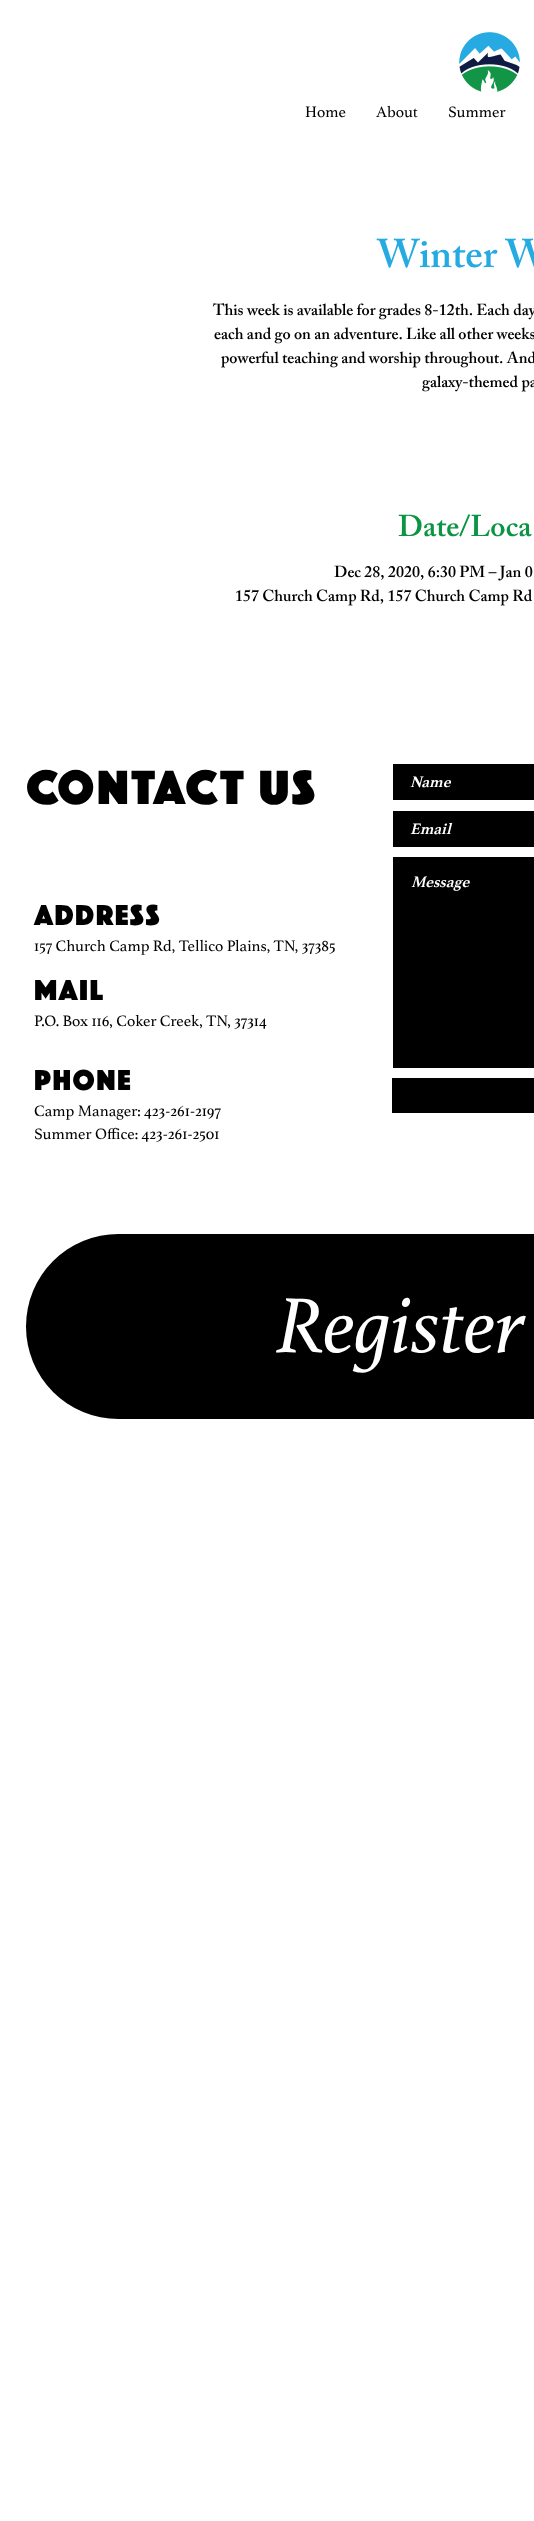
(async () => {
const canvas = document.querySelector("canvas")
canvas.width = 534
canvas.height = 2521
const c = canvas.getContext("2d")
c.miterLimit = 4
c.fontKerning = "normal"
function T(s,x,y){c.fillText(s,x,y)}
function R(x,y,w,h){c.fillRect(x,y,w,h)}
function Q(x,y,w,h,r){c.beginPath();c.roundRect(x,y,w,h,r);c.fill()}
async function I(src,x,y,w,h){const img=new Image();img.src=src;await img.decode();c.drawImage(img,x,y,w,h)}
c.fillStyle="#fff"
R(0,0,534,2521)
await I("1.png",459,32,61,60)
c.font="16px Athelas"
c.fillStyle="#000"
T("Home",305,117)
T("About",376,117)
T("Summer",448,117)
c.font="600 40px 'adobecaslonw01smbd'"
c.fillStyle="#26aae2"
T("Winter W",377,267)
c.font="600 16px 'adobecaslonw01smbd'"
c.fillStyle="#000"
T("This week is available for grades 8-12th. Each day",213,315)
T("each and go on an adventure. Like all other weeks",214,339)
T("powerful teaching and worship throughout. And",221,363)
T("galaxy-themed pa",422,387)
c.font="600 30px 'adobecaslonw01smbd'"
c.fillStyle="#0b9444"
T("Date/Loca",398,536)
c.font="600 16px 'adobecaslonw01smbd'"
c.fillStyle="#000"
T("Dec 28, 2020, 6:30 PM – Jan 0",334,577)
T("157 Church Camp Rd, 157 Church Camp Rd",235,601)
c.letterSpacing="2.5px"
c.font="500 50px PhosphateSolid"
T("CONTACT US",26,804)
R(393,764,141,36)
c.letterSpacing="0px"
c.font="italic bold 16px Athelas"
c.fillStyle="#fff"
T("Name",410,787)
c.fillStyle="#000"
R(393,811,141,36)
c.fillStyle="#fff"
T("Email",410,834)
c.fillStyle="#000"
R(393,857,141,211)
c.fillStyle="#fff"
T("Message",411,887)
c.fillStyle="#000"
R(392,1078,142,35)
c.letterSpacing="1.5px"
c.font="500 30px PhosphateSolid"
T("ADDRESS",34,925)
c.letterSpacing="0px"
c.font="16px Athelas"
T("157 Church Camp Rd, Tellico Plains, TN, 37385",34,951)
c.letterSpacing="1.5px"
c.font="500 30px PhosphateSolid"
T("MAIL",34,1000)
c.letterSpacing="0px"
c.font="16px Athelas"
T("P.O. Box 116, Coker Creek, TN, 37314",34,1026)
c.letterSpacing="1.5px"
c.font="500 30px PhosphateSolid"
T("PHONE",34,1090)
c.letterSpacing="0px"
c.font="16px Athelas"
T("Camp Manager: 423-261-2197",34,1116)
T("Summer Office: 423-261-2501",34,1139)
Q(26,1234,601,185,92.5)
c.font="italic 82px Athelas"
c.fillStyle="#fff"
T("Register",276,1352)
})()
